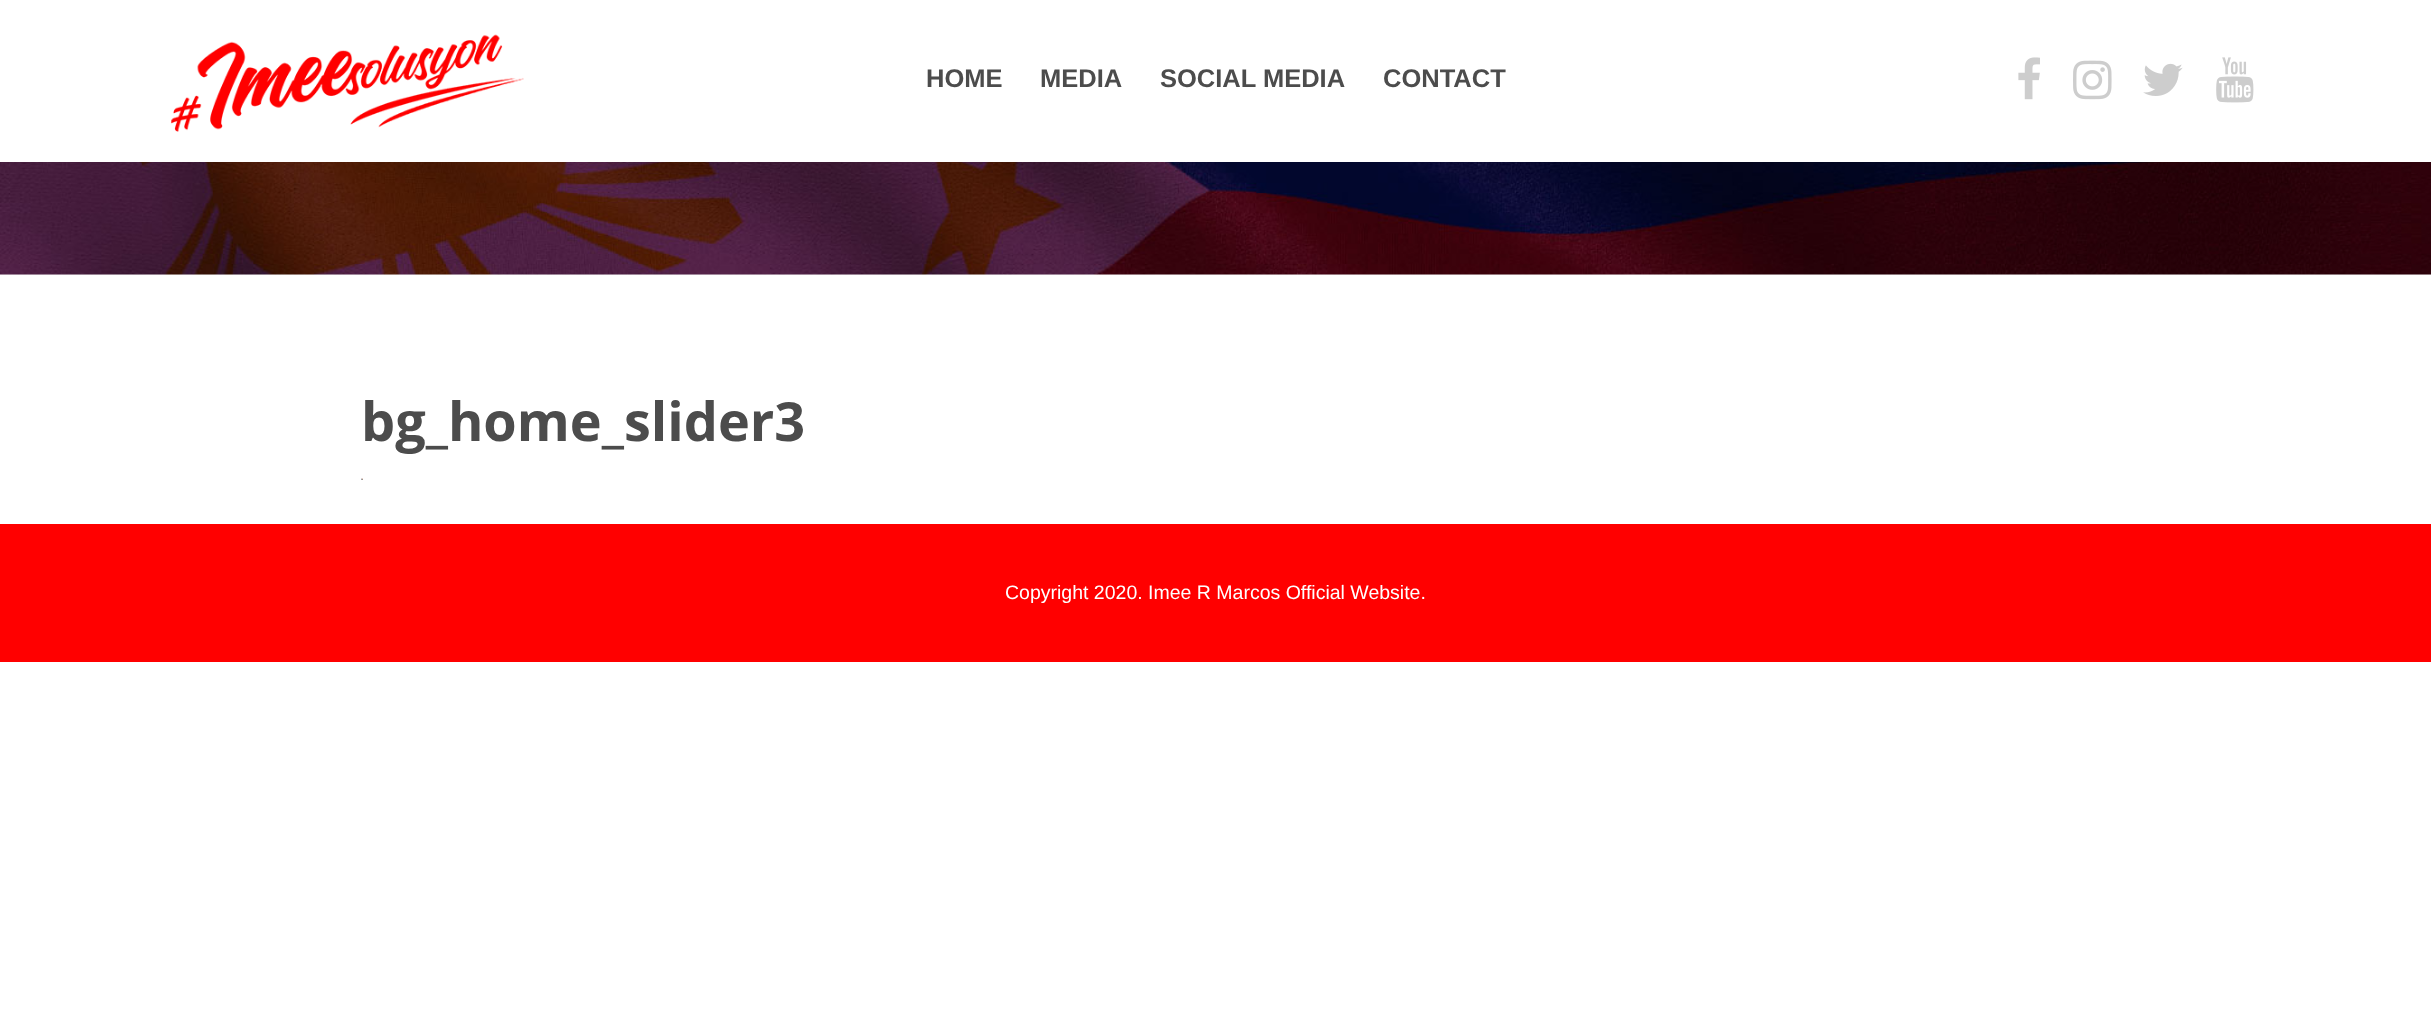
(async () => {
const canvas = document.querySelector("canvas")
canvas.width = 2431
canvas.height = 1011
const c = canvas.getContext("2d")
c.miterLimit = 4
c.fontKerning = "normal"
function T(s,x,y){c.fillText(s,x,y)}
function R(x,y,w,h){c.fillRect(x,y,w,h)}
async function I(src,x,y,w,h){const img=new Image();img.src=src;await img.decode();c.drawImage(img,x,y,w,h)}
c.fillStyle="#fff"
R(0,0,2431,1011)
await I("1.png",171,34,353,98)
c.font="bold 25.5px Liberation Sans"
c.fillStyle="#4c4c4c"
T("HOME",926,87)
T("MEDIA",1040,87)
T("SOCIAL MEDIA",1160,87)
T("CONTACT",1383,87)
await I("2.png",2018,57,22,43)
await I("3.png",2073,60,39,40)
await I("4.png",2143,63,40,33)
await I("5.png",2216,57,38,46)
c.fillStyle="#f2f2f2"
R(0,274,2431,1)
await I("6.png",0,162,2431,113)
c.font="bold 54px Open Sans"
c.fillStyle="#4c4c4c"
T("bg_home_slider3",361,441)
await I("7.png",361,478,2,2)
c.fillStyle="#f00"
R(0,524,2431,138)
c.font="19.5px Liberation Sans"
c.fillStyle="#fff"
T("Copyright 2020. Imee R Marcos Official Website.",1005,599)
})()
